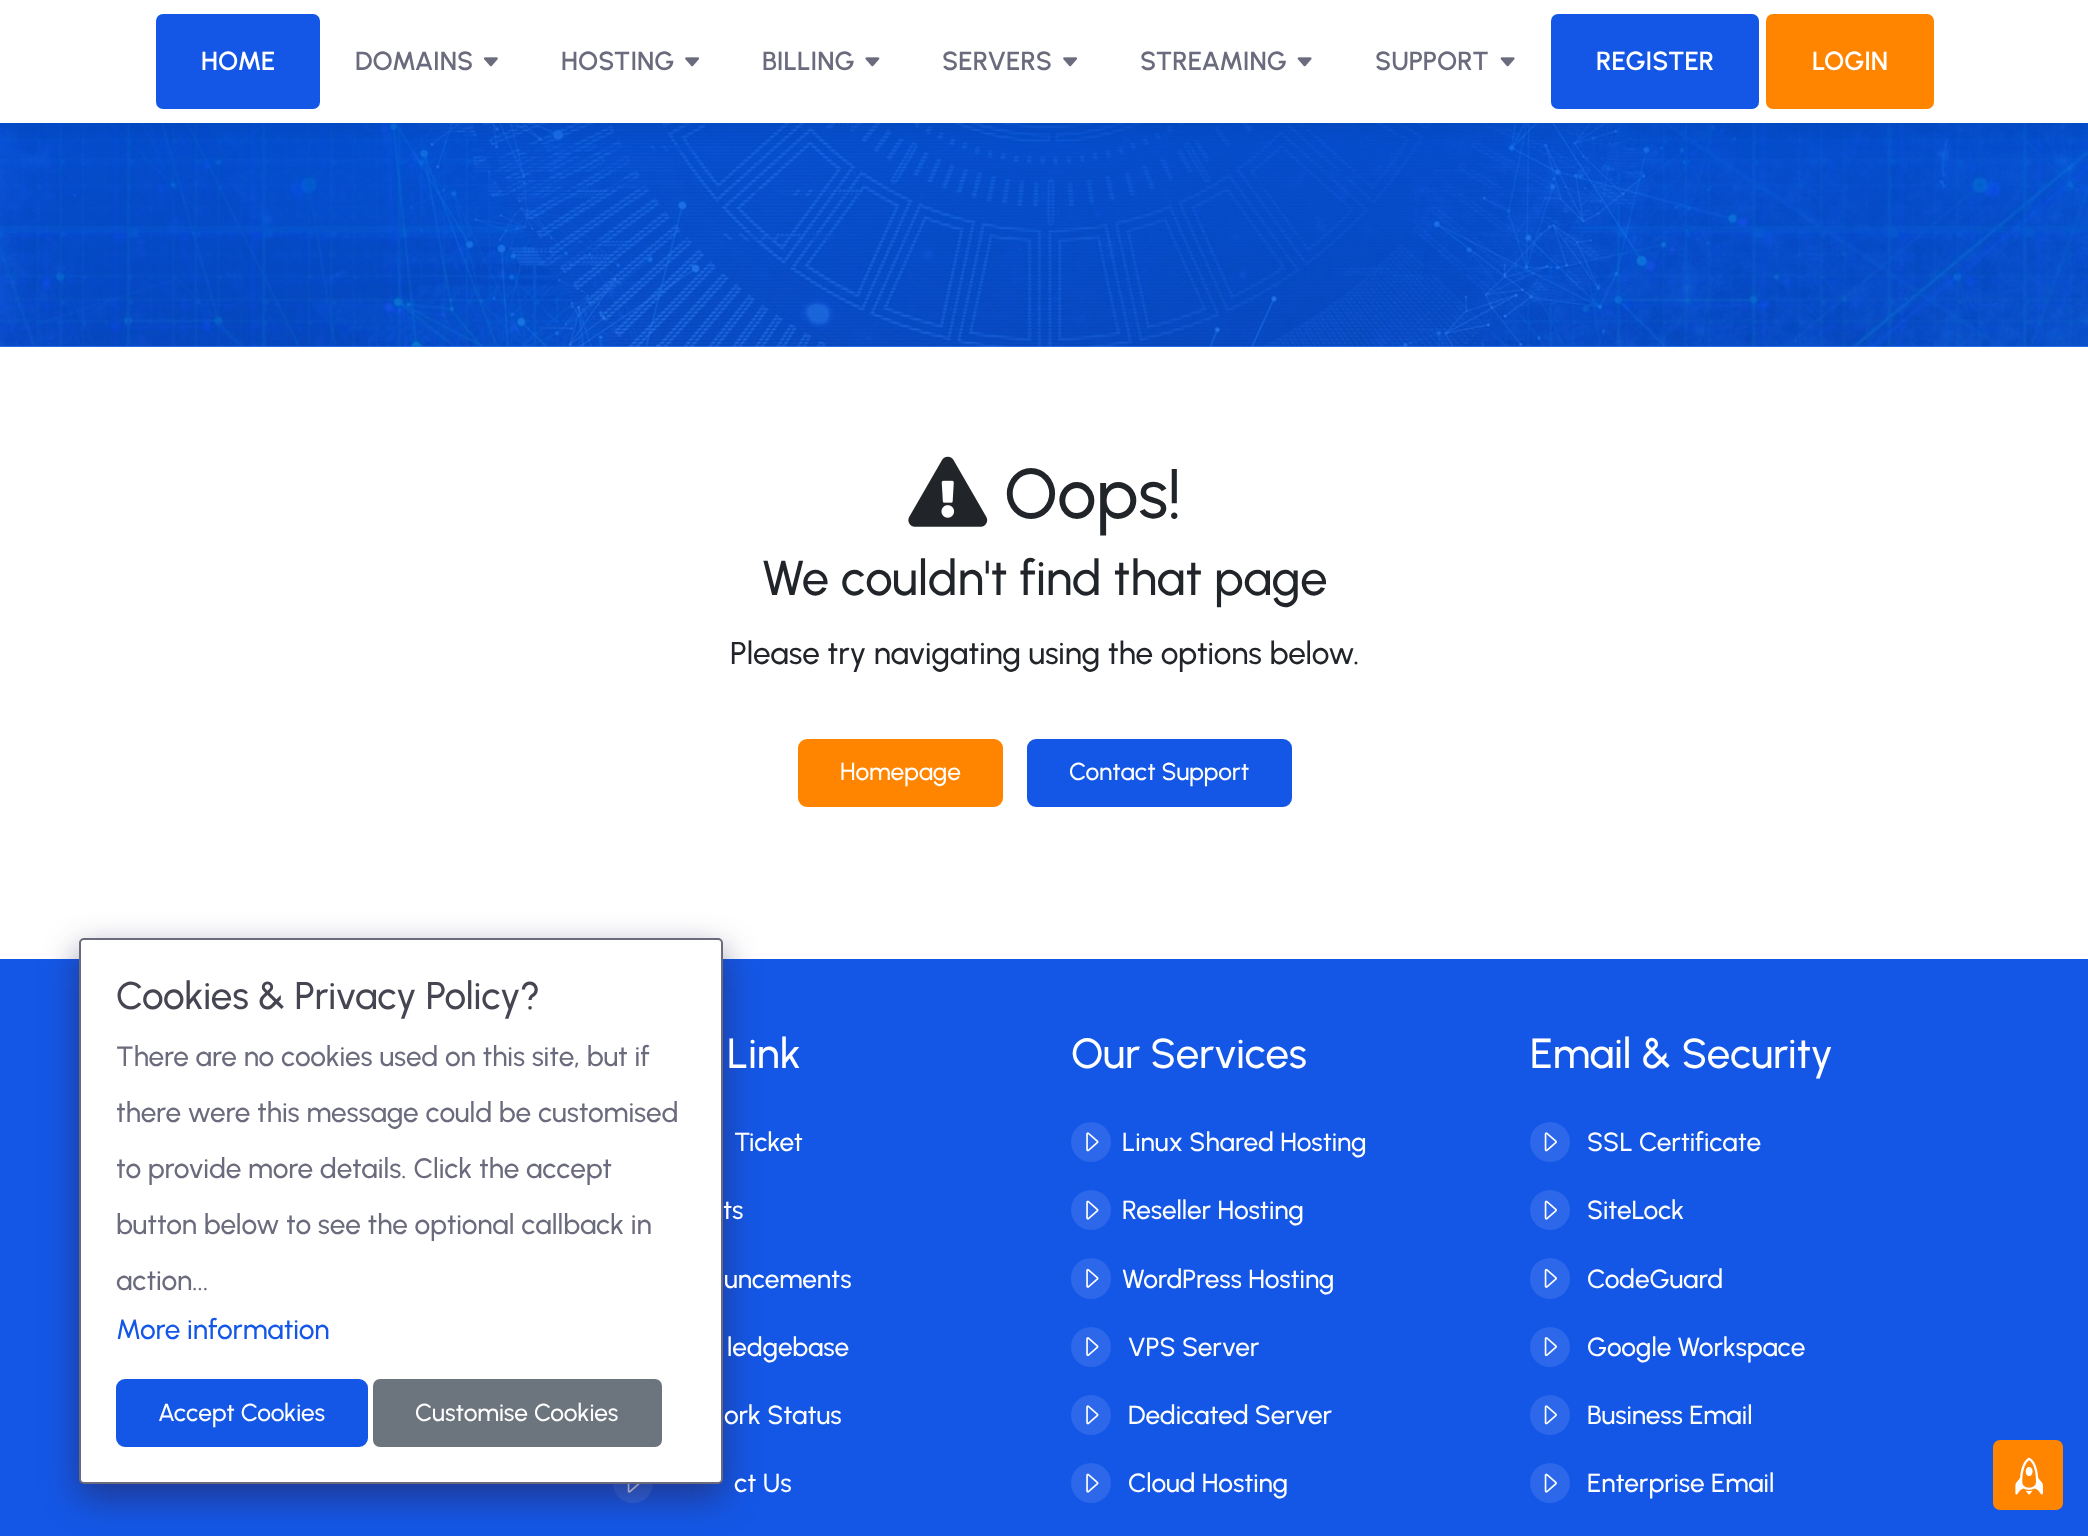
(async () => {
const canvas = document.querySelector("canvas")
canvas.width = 2088
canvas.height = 1536
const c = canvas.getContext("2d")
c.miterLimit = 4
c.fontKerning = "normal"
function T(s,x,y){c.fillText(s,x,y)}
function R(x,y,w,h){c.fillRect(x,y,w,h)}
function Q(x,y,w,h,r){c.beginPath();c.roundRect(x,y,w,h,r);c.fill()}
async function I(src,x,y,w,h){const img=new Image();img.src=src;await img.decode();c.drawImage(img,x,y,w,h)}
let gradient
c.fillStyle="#fff"
R(0,0,2088,1536)
await I("5.png",0,123,2088,224)
gradient = c.createLinearGradient(1045,-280,1045,347)
gradient.addColorStop(0,"#0057e6")
gradient.addColorStop(1,"#0057e6cc")
c.fillStyle = gradient
R(0,123,2088,224)
c.fillStyle="#0000001a"
c.filter="blur(13px)"
c.beginPath()
c.rect(0,4,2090,122)
c.fill()
c.filter="none"
c.fillStyle="#fff"
R(0,0,2088,123)
c.fillStyle="#1457e6"
c.beginPath()
c.roundRect(157,15,162,93,6)
c.fill()
c.strokeStyle="#1457e6"
c.lineWidth=2
c.stroke()
c.font="600 26.25px Urbanist"
c.fillStyle="#fff"
T("HOME",201,70)
c.fillStyle="#6b6b7e"
T("DOMAINS",355,70)
await I("1.png",483,57,15,10)
T("HOSTING",561,70)
await I("2.png",685,57,15,10)
T("BILLING",762,70)
await I("3.png",865,57,15,10)
T("SERVERS",942,70)
await I("2.png",1063,57,15,10)
T("STREAMING",1140,70)
await I("4.png",1297,57,15,10)
T("SUPPORT",1375,70)
await I("4.png",1500,57,15,10)
c.fillStyle="#1457e6"
c.beginPath()
c.roundRect(1552,15,206,93,6)
c.fill()
c.stroke()
c.fillStyle="#fff"
T("REGISTER",1596,70)
c.fillStyle="#ff8400"
c.beginPath()
c.roundRect(1767,15,166,93,6)
c.fill()
c.strokeStyle="#ff8400"
c.stroke()
c.fillStyle="#fff"
T("LOGIN",1812,70)
await I("6.png",908,456,80,71)
c.font="500 70px Urbanist"
c.fillStyle="#212529"
T("Oops!",1004,518)
c.font="500 49px Urbanist"
T("We couldn't find that page",762,595)
c.font="500 31.5px Urbanist"
T("Please try navigating using the options below.",730,664)
c.fillStyle="#ff8400"
c.beginPath()
c.roundRect(799,740,203,66,8)
c.fill()
c.stroke()
c.font="500 24.5px Urbanist"
c.fillStyle="#fff"
T("Homepage",840,780)
c.fillStyle="#1457e6"
c.beginPath()
c.roundRect(1028,740,263,66,8)
c.fill()
c.strokeStyle="#1457e6"
c.stroke()
c.fillStyle="#fff"
T("Contact Support",1069,780)
c.fillStyle="#1457e6"
R(0,959,2088,577)
c.fillStyle="#2c68e9"
c.beginPath()
c.arc(633,1483,20,0,7)
c.fill()
await I("7.png",627,1484,13,9)
c.fillStyle="#28255999"
c.filter="blur(17.5px)"
c.beginPath()
c.roundRect(79,952,644,546,5)
c.fill()
c.filter="none"
c.fillStyle="#fff"
c.beginPath()
c.roundRect(80,939,642,544,4)
c.fill()
c.strokeStyle="#6b6b7e"
c.stroke()
c.font="500 38.5px Urbanist"
c.fillStyle="#464653"
T("Cookies & Privacy Policy?",116,1009)
c.font="500 28px Urbanist"
c.fillStyle="#6b6b7e"
T("There are no cookies used on this site, but if",116,1066)
T("there were this message could be customised",116,1122)
T("to provide more details. Click the accept",116,1178)
T("button below to see the optional callback in",116,1234)
T("action...",116,1290)
c.fillStyle="#1457e6"
T("More information",116,1339)
c.beginPath()
c.roundRect(117,1380,250,66,8)
c.fill()
c.strokeStyle="#1457e6"
c.stroke()
c.font="500 24.5px Urbanist"
c.fillStyle="#fff"
T("Accept Cookies",158,1421)
c.fillStyle="#6c757d"
c.beginPath()
c.roundRect(374,1380,287,66,6)
c.fill()
c.strokeStyle="#6c757d"
c.stroke()
c.fillStyle="#fff"
T("Customise Cookies",415,1421)
c.font="500 42px Urbanist"
T("Link",727,1068)
c.font="500 26.25px Urbanist"
T("Ticket",734,1151)
T("ts",723,1219)
T("uncements",724,1288)
T("ledgebase",727,1356)
T("ork Status",724,1424)
T("ct Us",734,1492)
c.font="500 42px Urbanist"
T("Our Services",1071,1068)
c.fillStyle="#2c68e9"
c.beginPath()
c.arc(1091,1142,20,0,7)
c.fill()
await I("8.png",1086,1132,13,20)
c.font="500 26.25px Urbanist"
c.fillStyle="#fff"
T("Linux Shared Hosting",1122,1151)
c.fillStyle="#2c68e9"
c.beginPath()
c.arc(1091,1210,20,0,7)
c.fill()
await I("9.png",1086,1200,13,20)
c.fillStyle="#fff"
T("Reseller Hosting",1122,1219)
c.fillStyle="#2c68e9"
Q(1071,1258,40,41,20)
await I("10.png",1086,1268,13,20)
c.fillStyle="#fff"
T("WordPress Hosting",1122,1288)
c.fillStyle="#2c68e9"
c.beginPath()
c.arc(1091,1347,20,0,7)
c.fill()
await I("11.png",1086,1337,13,20)
c.fillStyle="#fff"
T("VPS Server",1128,1356)
c.fillStyle="#2c68e9"
c.beginPath()
c.arc(1091,1415,20,0,7)
c.fill()
await I("8.png",1086,1405,13,20)
c.fillStyle="#fff"
T("Dedicated Server",1128,1424)
c.fillStyle="#2c68e9"
c.beginPath()
c.arc(1091,1483,20,0,7)
c.fill()
await I("9.png",1086,1473,13,20)
c.fillStyle="#fff"
T("Cloud Hosting",1128,1492)
c.font="500 42px Urbanist"
T("Email & Security",1530,1068)
c.fillStyle="#2c68e9"
c.beginPath()
c.arc(1550,1142,20,0,7)
c.fill()
await I("12.png",1544,1132,13,20)
c.font="500 26.25px Urbanist"
c.fillStyle="#fff"
T("SSL Certificate",1587,1151)
c.fillStyle="#2c68e9"
c.beginPath()
c.arc(1550,1210,20,0,7)
c.fill()
await I("13.png",1544,1200,13,20)
c.fillStyle="#fff"
T("SiteLock",1587,1219)
c.fillStyle="#2c68e9"
Q(1530,1258,40,41,20)
await I("14.png",1544,1268,13,20)
c.fillStyle="#fff"
T("CodeGuard",1587,1288)
c.fillStyle="#2c68e9"
c.beginPath()
c.arc(1550,1347,20,0,7)
c.fill()
await I("15.png",1544,1337,13,20)
c.fillStyle="#fff"
T("Google Workspace",1587,1356)
c.fillStyle="#2c68e9"
c.beginPath()
c.arc(1550,1415,20,0,7)
c.fill()
await I("12.png",1544,1405,13,20)
c.fillStyle="#fff"
T("Business Email",1587,1424)
c.fillStyle="#2c68e9"
c.beginPath()
c.arc(1550,1483,20,0,7)
c.fill()
await I("13.png",1544,1473,13,20)
c.fillStyle="#fff"
T("Enterprise Email",1587,1492)
c.fillStyle="#ff8400"
Q(1993,1440,70,70,7)
await I("16.png",2015,1457,28,38)
})()
